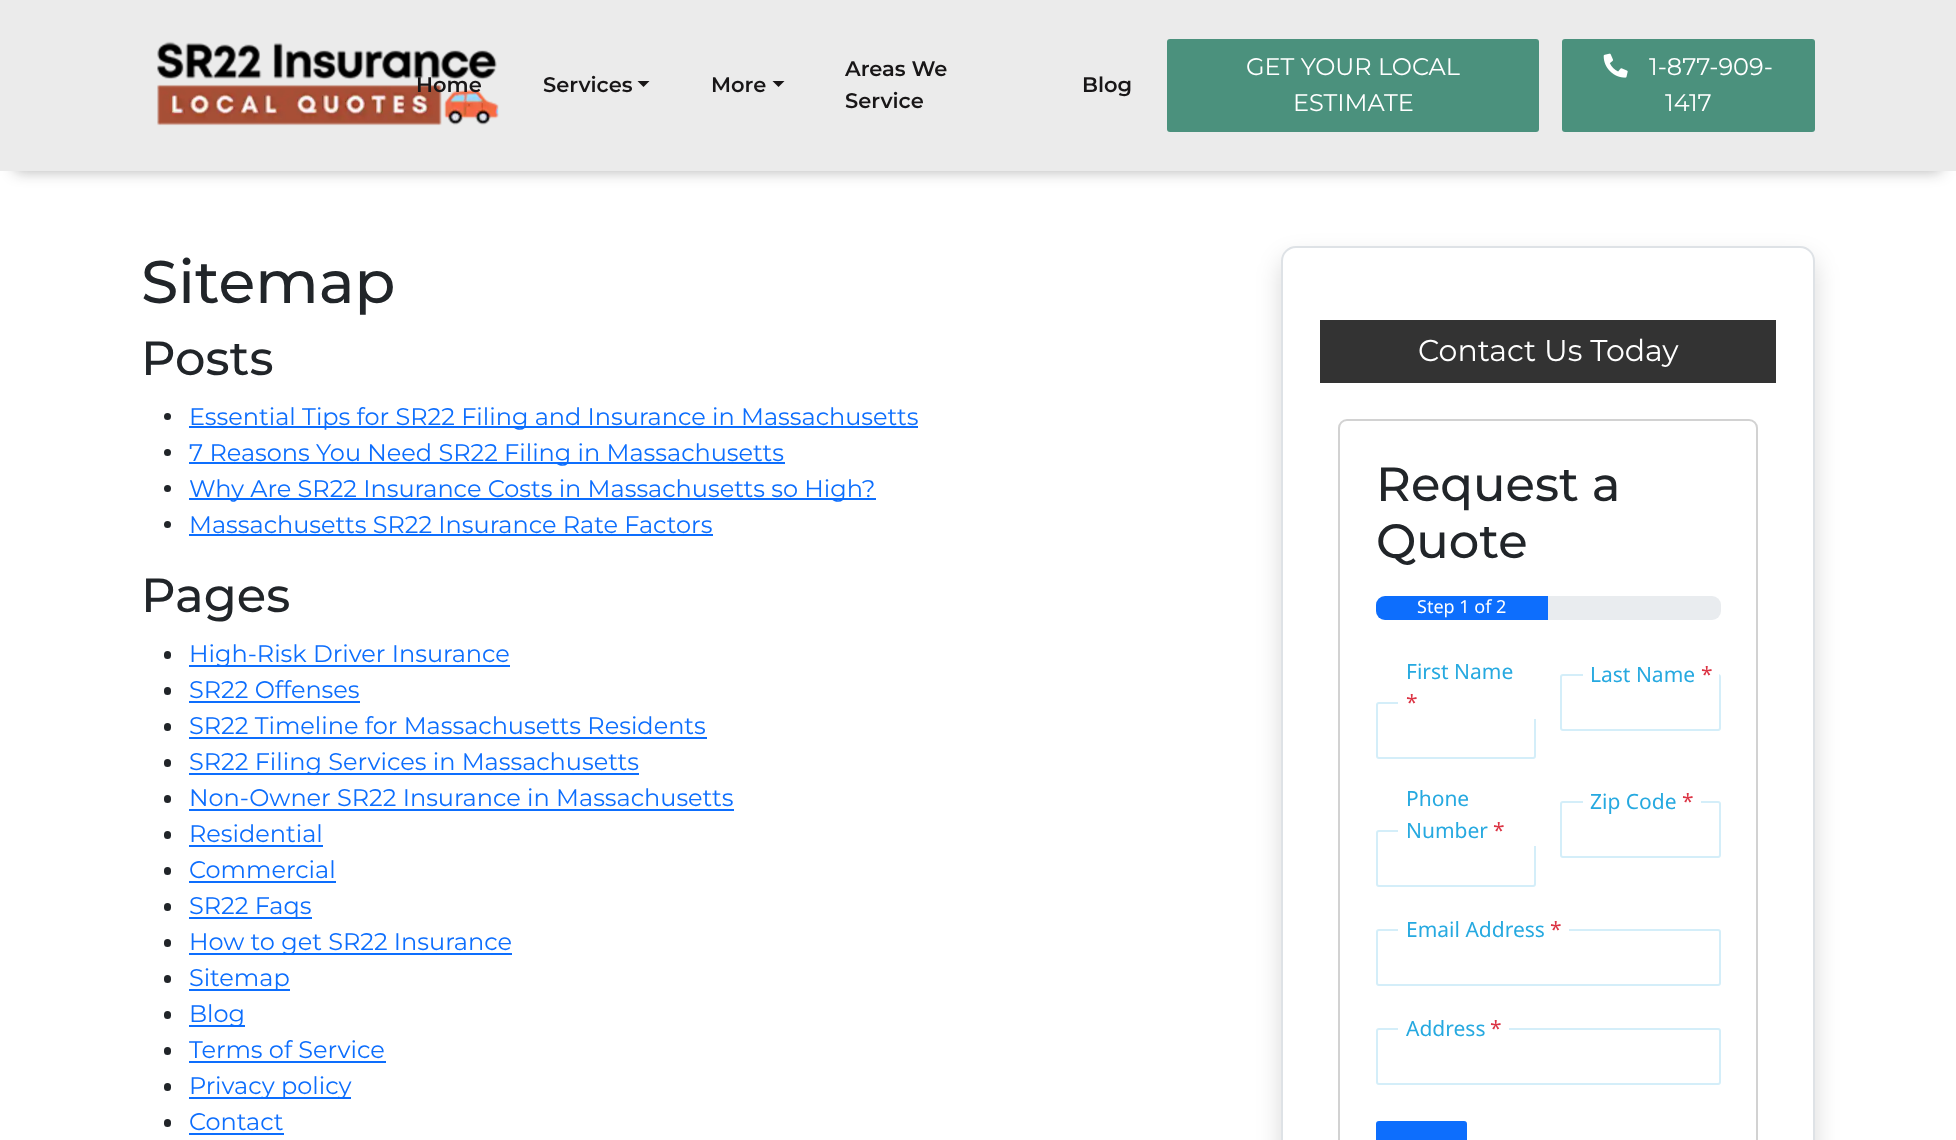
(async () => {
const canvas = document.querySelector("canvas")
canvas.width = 1956
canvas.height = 1140
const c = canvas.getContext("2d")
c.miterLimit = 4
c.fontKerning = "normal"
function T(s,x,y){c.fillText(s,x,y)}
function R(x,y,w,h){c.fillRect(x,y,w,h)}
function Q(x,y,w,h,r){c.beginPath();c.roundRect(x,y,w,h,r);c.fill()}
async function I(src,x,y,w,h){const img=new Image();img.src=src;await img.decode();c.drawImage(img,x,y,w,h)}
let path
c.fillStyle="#fff"
R(0,0,1956,1140)
c.fillStyle="#11111154"
c.filter="blur(7.5px)"
c.beginPath()
c.rect(15,30,1926,141)
c.fill()
c.filter="none"
c.fillStyle="#ebebeb"
R(0,0,1956,171)
await I("1.png",157,41,342,85)
c.font="600 21px Montserrat"
c.fillStyle="#181617"
T("Home",416,92)
T("Services",543,92)
path = new Path2D("M637.5 81h12l-6 6z")
c.fill(path)
T("More",711,92)
path = new Path2D("M772.5 81h12l-6 6z")
c.fill(path)
T("Areas We",845,76)
T("Service",845,108)
T("Blog",1082,92)
c.fillStyle="#4b917d"
Q(1167,39,372,93,3)
c.font="24px Montserrat"
c.fillStyle="#fff"
T("GET YOUR LOCAL",1246,75)
T("ESTIMATE",1293,111)
c.fillStyle="#4b917d"
Q(1562,39,253,93,3)
await I("2.png",1603,53,25,25)
c.fillStyle="#fff"
T("1-877-909-",1649,75)
T("1417",1665,111)
c.font="500 60px Montserrat"
c.fillStyle="#212529"
T("Sitemap",141,303)
c.font="500 48px Montserrat"
T("Posts",141,375)
c.beginPath()
c.arc(167.5,416.5,3.5,0,7)
c.fill()
c.fillStyle="#0d6efd"
R(189,426,729,2)
c.font="24px Montserrat"
T("Essential Tips for SR22 Filing and Insurance in Massachusetts",189,425)
c.fillStyle="#212529"
c.beginPath()
c.arc(167.5,452.5,3.5,0,7)
c.fill()
c.fillStyle="#0d6efd"
R(189,462,596,2)
T("7 Reasons You Need SR22 Filing in Massachusetts",189,461)
c.fillStyle="#212529"
c.beginPath()
c.arc(167.5,488.5,3.5,0,7)
c.fill()
c.fillStyle="#0d6efd"
R(189,498,687,2)
T("Why Are SR22 Insurance Costs in Massachusetts so High?",189,497)
c.fillStyle="#212529"
c.beginPath()
c.arc(167.5,524.5,3.5,0,7)
c.fill()
c.fillStyle="#0d6efd"
T("Massachusetts SR22 Insurance Rate Factors",189,533)
R(189,534,524,2)
c.font="500 48px Montserrat"
c.fillStyle="#212529"
T("Pages",141,612)
Q(164,651,7,8,3.5)
c.fillStyle="#0d6efd"
R(189,665,321,2)
c.font="24px Montserrat"
T("High-Risk Driver Insurance",189,662)
c.fillStyle="#212529"
Q(164,687,7,8,3.5)
c.fillStyle="#0d6efd"
T("SR22 Offenses",189,698)
R(189,701,171,2)
c.fillStyle="#212529"
Q(164,723,7,8,3.5)
c.fillStyle="#0d6efd"
T("SR22 Timeline for Massachusetts Residents",189,734)
R(189,737,518,2)
c.fillStyle="#212529"
Q(164,759,7,8,3.5)
c.fillStyle="#0d6efd"
R(189,773,450,2)
T("SR22 Filing Services in Massachusetts",189,770)
c.fillStyle="#212529"
Q(164,795,7,8,3.5)
c.fillStyle="#0d6efd"
T("Non-Owner SR22 Insurance in Massachusetts",189,806)
R(189,809,545,2)
c.fillStyle="#212529"
Q(164,831,7,8,3.5)
c.fillStyle="#0d6efd"
T("Residential",189,842)
R(189,845,134,2)
c.fillStyle="#212529"
Q(164,867,7,8,3.5)
c.fillStyle="#0d6efd"
T("Commercial",189,878)
R(189,881,147,2)
c.fillStyle="#212529"
Q(164,903,7,8,3.5)
c.fillStyle="#0d6efd"
R(189,917,123,2)
T("SR22 Faqs",189,914)
c.fillStyle="#212529"
Q(164,939,7,8,3.5)
c.fillStyle="#0d6efd"
R(189,953,323,2)
T("How to get SR22 Insurance",189,950)
c.fillStyle="#212529"
Q(164,975,7,8,3.5)
c.fillStyle="#0d6efd"
R(189,989,101,2)
T("Sitemap",189,986)
c.fillStyle="#212529"
Q(164,1011,7,8,3.5)
c.fillStyle="#0d6efd"
R(189,1025,56,2)
T("Blog",189,1022)
c.fillStyle="#212529"
Q(164,1047,7,8,3.5)
c.fillStyle="#0d6efd"
T("Terms of Service",189,1058)
R(189,1061,197,2)
c.fillStyle="#212529"
Q(164,1083,7,8,3.5)
c.fillStyle="#0d6efd"
R(189,1097,162,2)
T("Privacy policy",189,1094)
c.fillStyle="#212529"
Q(164,1119,7,8,3.5)
c.fillStyle="#0d6efd"
T("Contact",189,1130)
R(189,1133,95,2)
c.fillStyle="#00000026"
c.filter="blur(12px)"
c.beginPath()
c.roundRect(1281,258,534,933,15)
c.fill()
c.filter="none"
c.fillStyle="#fff"
c.beginPath()
c.roundRect(1282,247,532,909,14)
c.fill()
c.strokeStyle="#dee2e6"
c.lineWidth=2
c.stroke()
c.fillStyle="#333"
R(1320,320,456,63)
c.font="30px Montserrat"
c.fillStyle="#fff"
T("Contact Us Today",1418,361)
c.beginPath()
c.roundRect(1339,420,418,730,8)
c.strokeStyle="#d2d2d2"
c.stroke()
c.font="500 48px Montserrat"
c.fillStyle="#212529"
T("Request a",1376,501)
T("Quote",1376,558)
c.fillStyle="#e9ecef"
Q(1376,596,345,24,9)
c.fillStyle="#0d6efd"
c.beginPath()
c.roundRect(1376,596,172,24,[9,0,0,9])
c.fill()
c.font="18px Noto Sans"
c.fillStyle="#fff"
T("Step 1 of 2",1417,613)
c.beginPath()
c.roundRect(1377,703,158,55,2)
c.strokeStyle="#d4eef9"
c.stroke()
R(1398,702,138,17)
c.font="21px Noto Sans"
c.fillStyle="#26a9e0"
T("First Name",1406,679)
c.fillStyle="#dc3545"
T("*",1406,710)
c.beginPath()
c.roundRect(1561,675,159,55,2)
c.stroke()
c.fillStyle="#fff"
R(1583,674,136,3)
c.fillStyle="#26a9e0"
T("Last Name",1590,682)
c.fillStyle="#dc3545"
T("*",1701,682)
c.beginPath()
c.roundRect(1377,831,158,55,2)
c.stroke()
c.fillStyle="#fff"
R(1398,830,138,16)
c.fillStyle="#26a9e0"
T("Phone",1406,806)
T("Number",1406,838)
c.fillStyle="#dc3545"
T("*",1493,838)
c.beginPath()
c.roundRect(1561,802,159,55,2)
c.stroke()
c.fillStyle="#fff"
R(1583,801,118,2)
c.fillStyle="#26a9e0"
T("Zip Code",1590,809)
c.fillStyle="#dc3545"
T("*",1682,809)
c.beginPath()
c.roundRect(1377,930,343,55,2)
c.stroke()
c.fillStyle="#fff"
R(1398,929,171,2)
c.fillStyle="#26a9e0"
T("Email Address",1406,937)
c.fillStyle="#dc3545"
T("*",1550,937)
c.beginPath()
c.roundRect(1377,1029,343,55,2)
c.stroke()
c.fillStyle="#fff"
R(1398,1028,111,2)
c.fillStyle="#26a9e0"
T("Address",1406,1036)
c.fillStyle="#dc3545"
T("*",1490,1036)
c.fillStyle="#0d6efd"
c.beginPath()
c.roundRect(1377,1122,89,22,2)
c.fill()
c.strokeStyle="#0d6efd"
c.stroke()
})()
